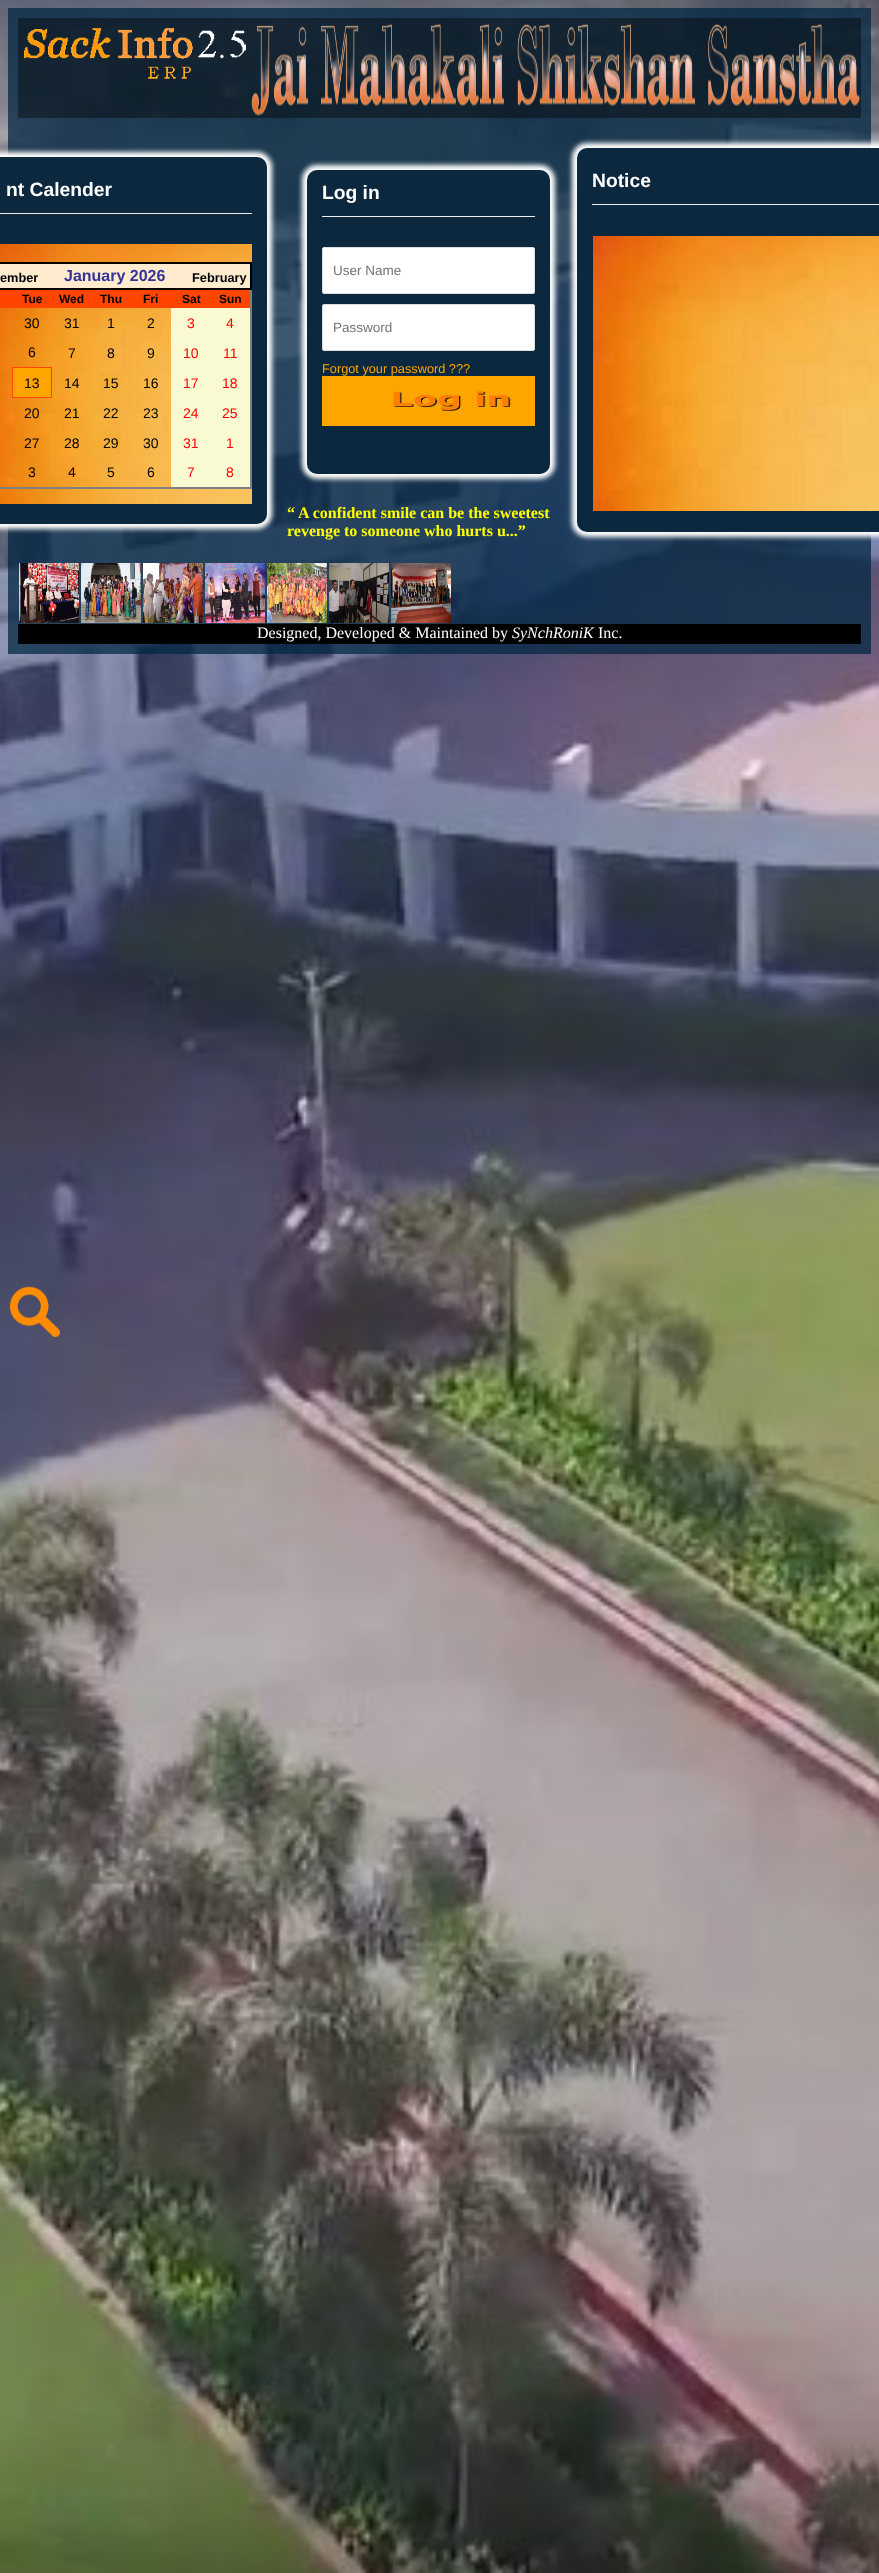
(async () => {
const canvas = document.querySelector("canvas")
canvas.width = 879
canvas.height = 2573
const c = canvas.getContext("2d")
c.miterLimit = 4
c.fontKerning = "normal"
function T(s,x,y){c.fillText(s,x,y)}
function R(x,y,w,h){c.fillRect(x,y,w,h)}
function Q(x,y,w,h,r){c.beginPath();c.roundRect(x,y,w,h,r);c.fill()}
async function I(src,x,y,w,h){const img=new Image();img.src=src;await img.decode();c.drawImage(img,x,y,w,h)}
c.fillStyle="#fff"
R(0,0,879,2573)
await I("1.png",0,0,879,2573)
c.fillStyle="#042844bf"
R(8,8,863,646)
c.fillStyle="#00000066"
R(18,18,843,100)
await I("2.png",24,28,222,51)
await I("3.png",251,23,609,93)
c.fillStyle="#fff"
c.filter="blur(2.5px)"
c.beginPath()
c.roundRect(572,143,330,394,15)
c.fill()
c.filter="none"
c.fillStyle="#0c283f"
Q(577,148,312,384,10)
c.fillStyle="#eee"
R(592,204,287,1)
c.font="bold 19.25px Liberation Sans"
c.fillStyle="#fff"
T("Notice",592,187)
await I("4.png",593,236,286,275)
c.filter="blur(2.5px)"
c.beginPath()
c.roundRect(-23,152,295,377,15)
c.fill()
c.filter="none"
c.fillStyle="#0c283f"
Q(-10,157,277,367,10)
c.fillStyle="#eee"
R(0,213,252,1)
c.fillStyle="#fff"
T("nt Calender",6,196)
await I("5.png",0,244,252,260)
c.fillStyle="#808080"
R(250,290,2,199)
R(0,487,252,2)
c.fillStyle="#ffebcd"
R(0,264,250,24)
c.fillStyle="#000"
R(0,262,252,2)
R(250,262,2,28)
R(0,288,252,2)
c.font="bold 12.75px Liberation Sans"
T("ember",0,282)
c.font="bold 16px Liberation Sans"
c.fillStyle="#339"
T("January 2026",64,281)
c.font="bold 12.75px Liberation Sans"
c.fillStyle="#000"
T("February",192,282)
c.fillStyle="#ff4500"
R(0,290,250,18)
c.font="bold 12px Liberation Sans"
c.fillStyle="#000"
T("Tue",22,303)
T("Wed",59,303)
T("Thu",100,303)
T("Fri",143,303)
T("Sat",182,303)
T("Sun",219,303)
c.font="14px Liberation Sans"
T("30",24,328)
T("31",64,328)
T("1",107,328)
T("2",147,328)
c.fillStyle="#fafad2"
R(171,308,79,30)
c.fillStyle="#f00"
T("3",187,328)
T("4",226,328)
c.fillStyle="#000"
T("6",28,357)
T("7",68,358)
T("8",107,358)
T("9",147,358)
c.fillStyle="#fafad2"
R(171,338,79,30)
c.fillStyle="#f00"
T("10",183,358)
T("11",223,358)
c.fillStyle="#ffa500"
R(13,368,38,29)
c.fillStyle="#ff4500"
R(12,367,40,1)
R(51,367,1,31)
R(12,397,40,1)
R(12,367,1,31)
c.fillStyle="#000"
T("13",24,388)
T("14",64,388)
T("15",103,388)
T("16",143,388)
c.fillStyle="#fafad2"
R(171,368,79,30)
c.fillStyle="#f00"
T("17",183,388)
T("18",222,388)
c.fillStyle="#000"
T("20",24,418)
T("21",64,418)
T("22",103,418)
T("23",143,418)
c.fillStyle="#fafad2"
R(171,398,79,30)
c.fillStyle="#f00"
T("24",183,418)
T("25",222,418)
c.fillStyle="#000"
T("27",24,448)
T("28",64,448)
T("29",103,448)
T("30",143,448)
c.fillStyle="#fafad2"
R(171,428,79,30)
c.fillStyle="#f00"
T("31",183,448)
T("1",226,448)
c.fillStyle="#000"
T("3",28,477)
T("4",68,477)
T("5",107,477)
T("6",147,477)
c.fillStyle="#fafad2"
R(171,458,79,29)
c.fillStyle="#f00"
T("7",187,477)
T("8",226,477)
c.fillStyle="#fff"
c.filter="blur(2.5px)"
c.beginPath()
c.roundRect(302,165,253,314,15)
c.fill()
c.filter="none"
c.fillStyle="#0c283f"
Q(307,170,243,304,10)
c.fillStyle="#eee"
R(322,216,213,1)
c.font="bold 19.25px Liberation Sans"
c.fillStyle="#fff"
T("Log in",322,199)
c.beginPath()
c.roundRect(322.5,247.5,212,46,1.5)
c.fill()
c.strokeStyle="#ddd"
c.stroke()
c.font="13.5px Liberation Sans"
c.fillStyle="#757575"
T("User Name",333,275)
c.fillStyle="#fff"
c.beginPath()
c.roundRect(322.5,304.5,212,46,1.5)
c.fill()
c.stroke()
c.fillStyle="#757575"
T("Password",333,332)
c.font="12.75px Liberation Sans"
c.fillStyle="#ffa500"
T("Forgot your password ???",322,373)
R(322,376,213,50)
await I("6.png",393,391,118,20)
c.font="bold 16px Liberation Serif"
c.fillStyle="#ff0"
T("“",287,518)
T("A confident smile can be the sweetest",298,518)
T("revenge to someone who hurts u...”",287,536)
await I("7.png",19,563,60,60)
await I("8.png",81,563,60,60)
await I("9.png",143,563,60,60)
await I("10.png",205,563,60,60)
await I("11.png",267,563,60,60)
await I("12.png",329,563,60,60)
await I("13.png",391,563,60,60)
c.fillStyle="#000"
R(18,624,843,20)
c.font="16px Liberation Serif"
c.fillStyle="#fff"
T("Designed, Developed & Maintained by",257,638)
c.font="italic 16px Liberation Serif"
T("SyNchRoniK",512,638)
c.font="16px Liberation Serif"
T("Inc.",598,638)
await I("14.png",10,1286,50,51)
})()
